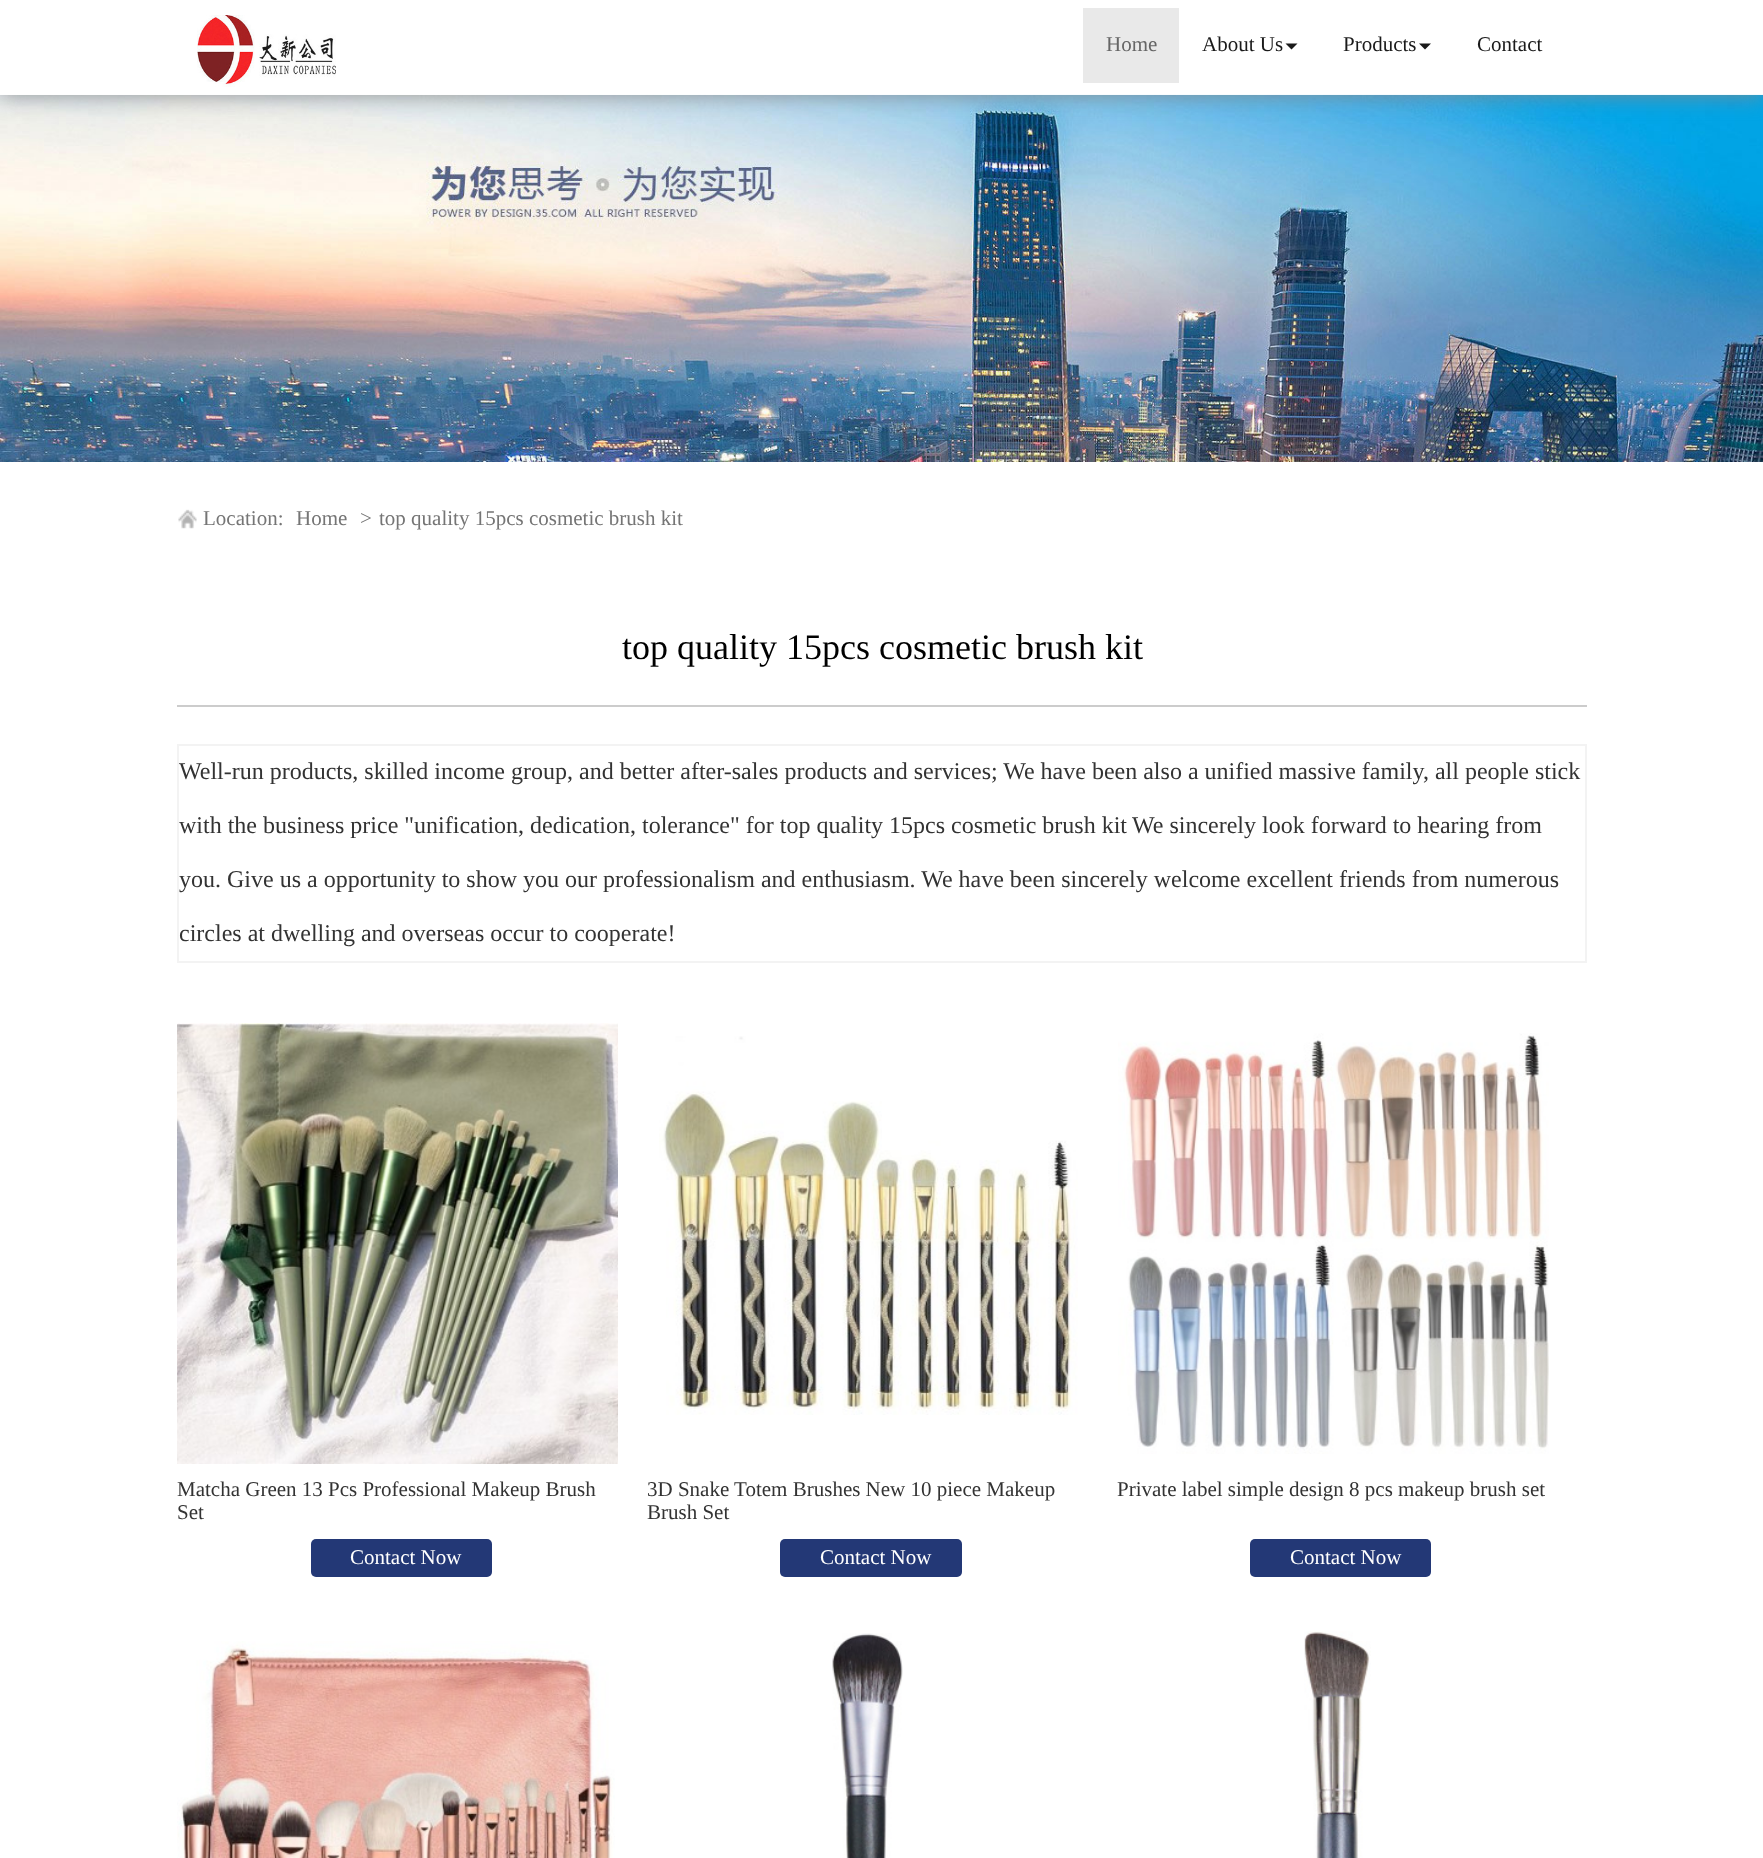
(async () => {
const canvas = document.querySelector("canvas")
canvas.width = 1763
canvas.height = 1858
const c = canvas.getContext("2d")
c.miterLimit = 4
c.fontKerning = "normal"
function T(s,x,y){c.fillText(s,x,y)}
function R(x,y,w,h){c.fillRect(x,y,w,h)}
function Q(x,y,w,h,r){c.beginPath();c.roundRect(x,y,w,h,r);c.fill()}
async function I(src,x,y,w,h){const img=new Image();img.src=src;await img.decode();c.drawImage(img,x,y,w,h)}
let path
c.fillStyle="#fff"
R(0,0,1763,1858)
await I("2.png",0,94,1763,368)
c.save()
path = new Path2D("M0 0h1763v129h-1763zm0 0h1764v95h-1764z")
c.clip(path,"evenodd")
c.fillStyle="#888888e6"
c.filter="blur(11px)"
c.beginPath()
c.rect(0,0,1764,95)
c.fill()
c.filter="none"
c.restore()
c.fillStyle="#ffffffe6"
R(0,94,1763,1)
await I("1.png",197,15,139,72)
c.fillStyle="#e9e9e9"
R(1083,8,96,75)
c.font="21px Liberation Serif"
c.fillStyle="#666"
T("Home",1106,51)
c.fillStyle="#1a1a1a"
T("About Us",1202,51)
path = new Path2D("M1285.5 43.5h12l-6 6z")
c.fill(path)
T("Products",1343,51)
path = new Path2D("M1419 43.5h12l-6 6z")
c.fill(path)
T("Contact",1477,51)
await I("3.png",178,509,19,20)
c.fillStyle="#757575"
T("Location:",203,525)
T("Home",296,525)
T(">",360,525)
T("top quality 15pcs cosmetic brush kit",379,525)
c.font="36px Liberation Serif"
c.fillStyle="#000"
T("top quality 15pcs cosmetic brush kit",622,659)
c.fillStyle="#ccc"
R(177,705,1410,2)
c.strokeStyle="#f3f3f3"
c.lineWidth=2
c.strokeRect(178,745,1408,217)
c.font="24px Liberation Serif"
c.fillStyle="#333"
T("Well-run products, skilled income group, and better after-sales products and services; We have been also a unified massive family, all people stick",179,779)
T("with the business price \"unification, dedication, tolerance\" for top quality 15pcs cosmetic brush kit",179,833)
T("We sincerely look forward to hearing from",1132,833)
T("you. Give us a opportunity to show you our professionalism and enthusiasm. We have been sincerely welcome excellent friends from numerous",179,887)
T("circles at dwelling and overseas occur to cooperate!",179,941)
await I("4.png",177,1023,441,441)
c.font="21px Liberation Serif"
T("Matcha Green 13 Pcs Professional Makeup Brush",177,1496)
T("Set",177,1519)
c.fillStyle="#233876"
Q(311,1539,181,38,5)
c.fillStyle="#fff"
T("Contact Now",350,1564)
await I("5.png",659,1036,419,379)
c.fillStyle="#333"
T("3D Snake Totem Brushes New 10 piece Makeup",647,1496)
T("Brush Set",647,1519)
c.fillStyle="#233876"
Q(780,1539,182,38,5)
c.fillStyle="#fff"
T("Contact Now",820,1564)
await I("6.png",1118,1033,431,421)
c.fillStyle="#333"
T("Private label simple design 8 pcs makeup brush set",1117,1496)
c.fillStyle="#233876"
Q(1250,1539,181,38,5)
c.fillStyle="#fff"
T("Contact Now",1290,1564)
await I("7.png",177,1641,438,217)
await I("8.png",832,1633,71,225)
await I("9.png",1304,1631,67,227)
})()
